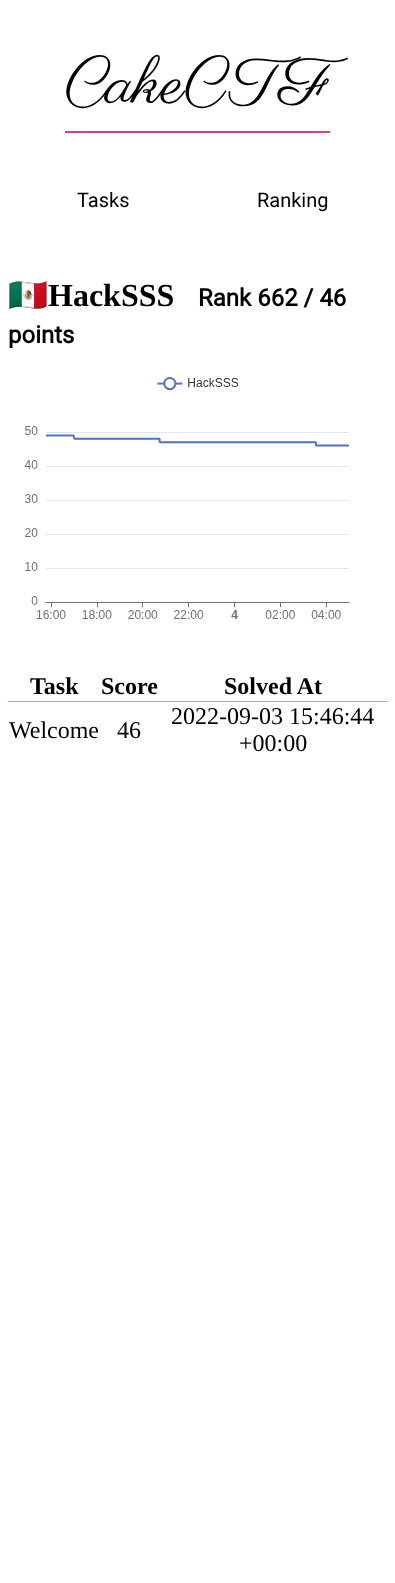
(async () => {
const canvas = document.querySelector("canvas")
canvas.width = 395
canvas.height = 1583
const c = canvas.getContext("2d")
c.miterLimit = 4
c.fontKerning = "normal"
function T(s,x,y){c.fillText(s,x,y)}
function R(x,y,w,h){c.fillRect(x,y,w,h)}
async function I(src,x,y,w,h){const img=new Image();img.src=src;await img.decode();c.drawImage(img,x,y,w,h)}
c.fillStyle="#fff"
R(0,0,395,1583)
c.fillStyle="#d53f8c"
R(65,131,265,2)
c.font="64px Parisienne"
c.fillStyle="#000"
T("CakeCTF",65,102)
c.font="20px Roboto"
T("Tasks",77,207)
T("Ranking",257,207)
c.font="bold 32px Noto Color Emoji"
T("🇲🇽",8,306)
c.font="bold 32px Liberation Serif"
T("HackSSS",48,306)
c.font="bold 24px Roboto"
T("Rank 662 / 46",198,306)
T("points",8,343)
await I("1.png",24,377,326,242)
c.fillStyle="#fe86b3"
R(8,701,380,1)
c.font="bold 24px Liberation Serif"
c.fillStyle="#000"
T("Task",30,694)
T("Score",101,694)
T("Solved At",224,694)
c.font="24px Liberation Serif"
T("Welcome",9,738)
T("46",117,738)
T("2022-09-03 15:46:44",171,724)
T("+00:00",239,751)
})()
